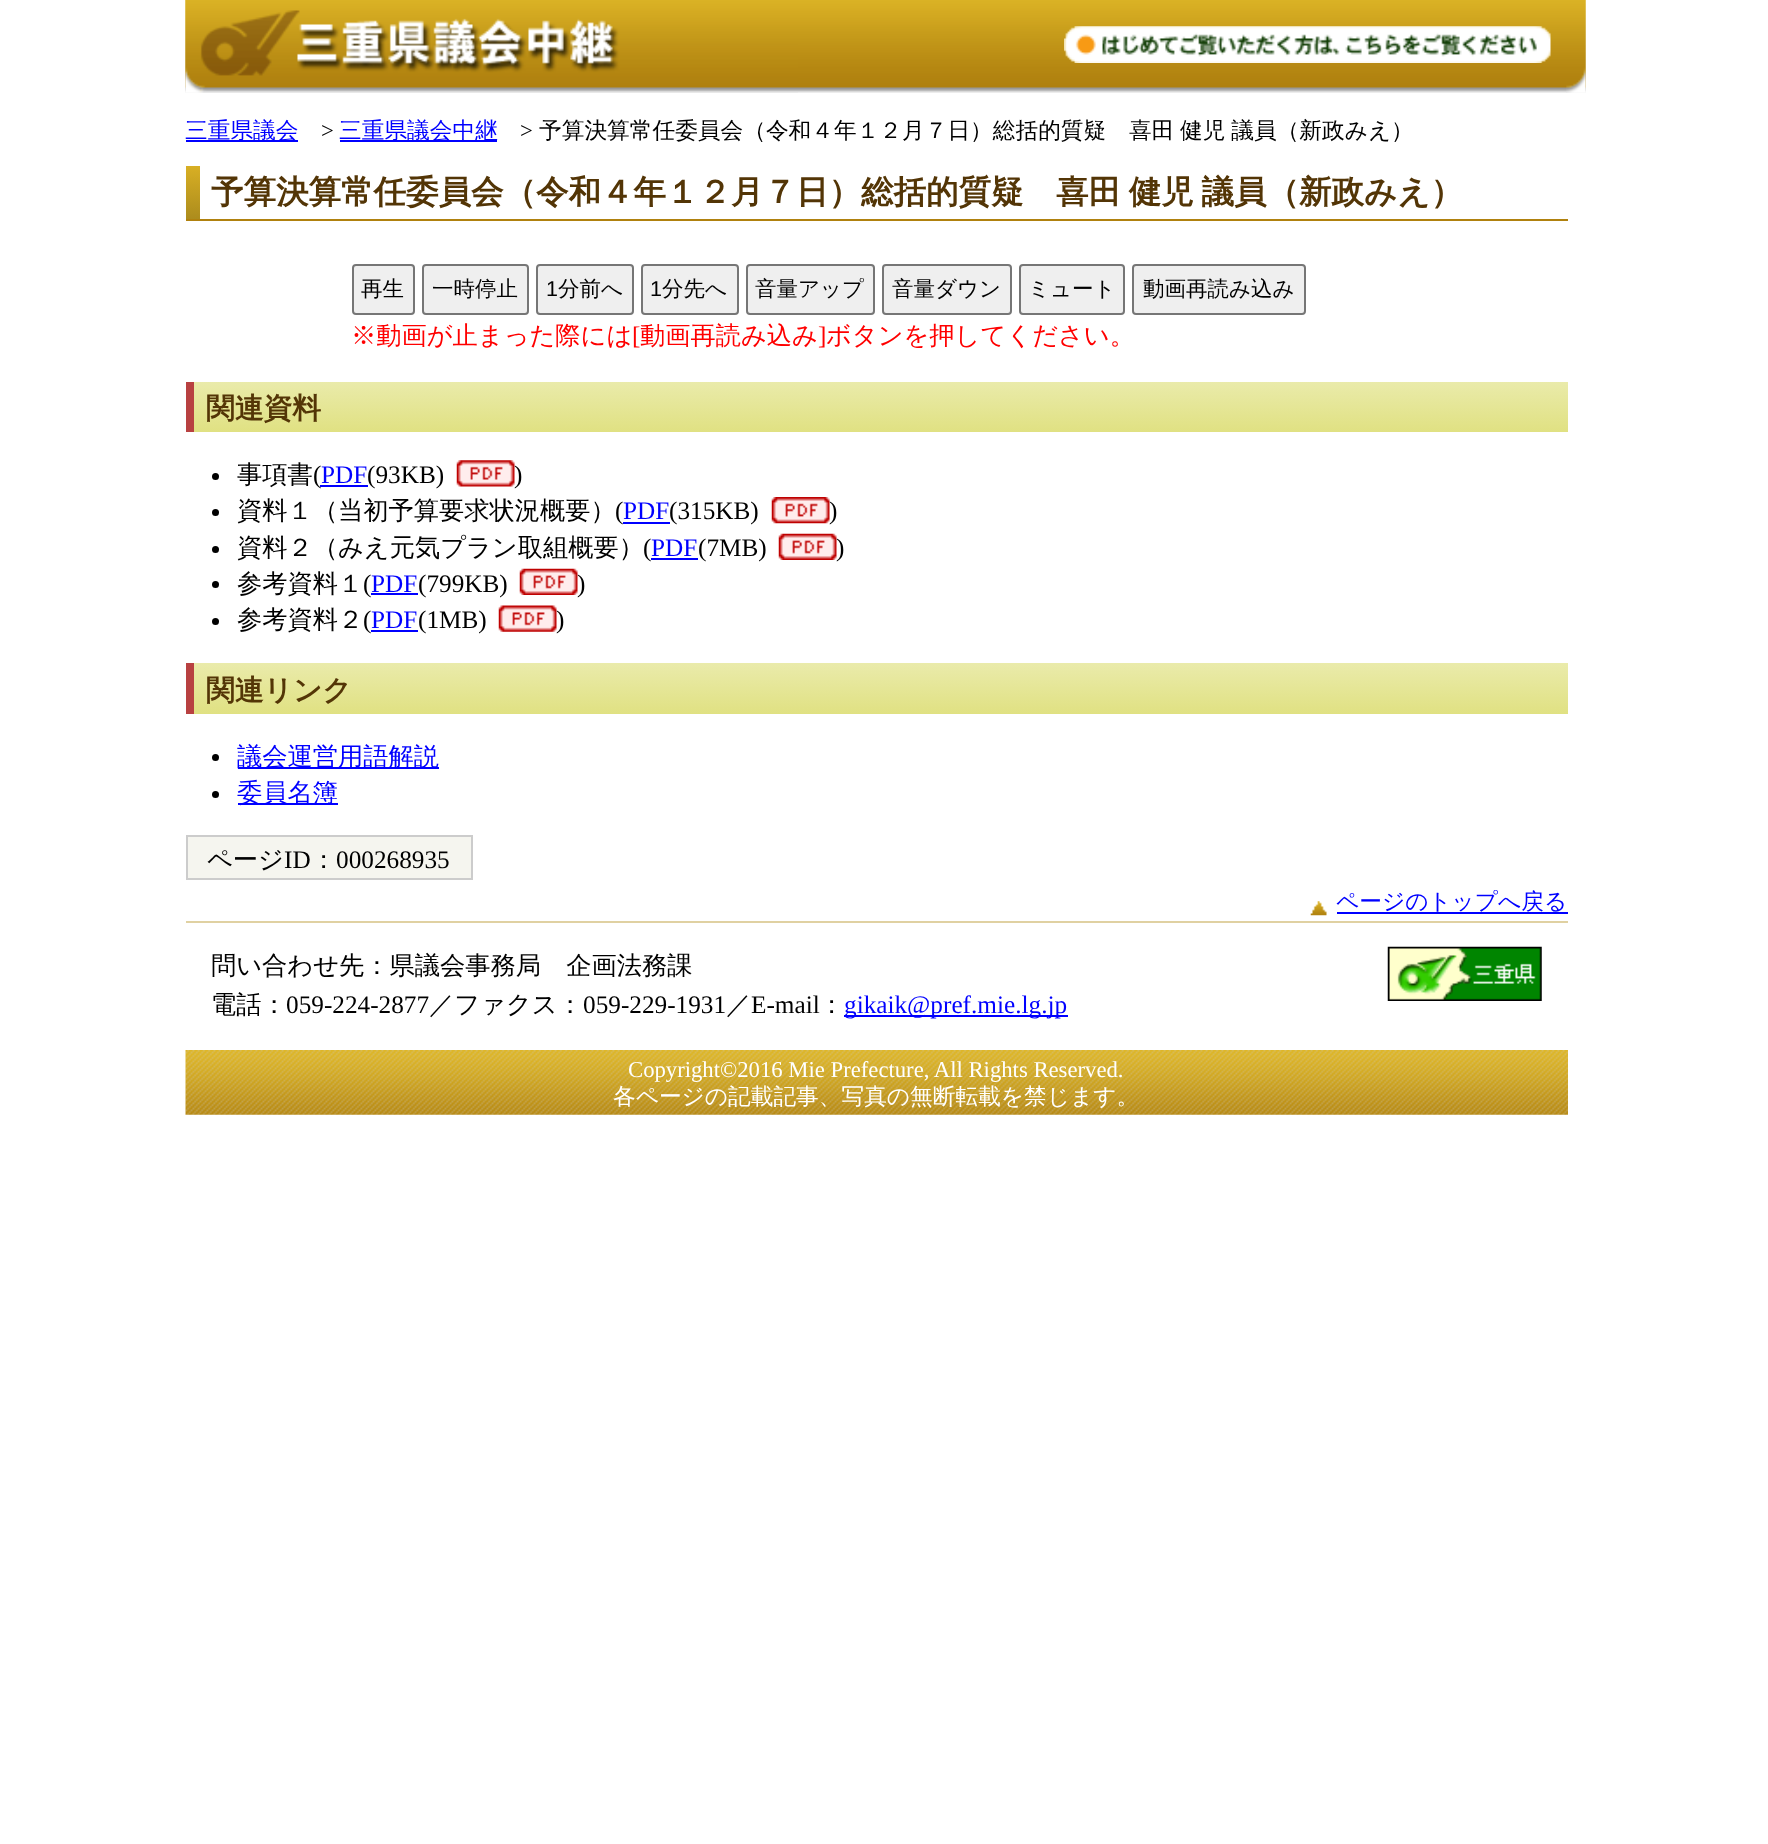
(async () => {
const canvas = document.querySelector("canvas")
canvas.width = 1768
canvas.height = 1844
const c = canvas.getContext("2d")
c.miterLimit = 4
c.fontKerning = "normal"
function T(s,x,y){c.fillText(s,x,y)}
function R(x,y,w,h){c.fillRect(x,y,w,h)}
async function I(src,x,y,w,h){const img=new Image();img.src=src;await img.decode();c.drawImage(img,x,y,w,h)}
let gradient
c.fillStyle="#fff"
R(0,0,1768,1844)
await I("1.png",185,0,1401,93)
await I("2.png",1566,0,20,93)
await I("3.png",185,0,613,93)
await I("4.png",1064,26,487,37)
c.fillStyle="#00f"
R(186,140,112,2)
c.font="500 22.7px WenQuanYi Zen Hei"
T("三重県議会",185,138)
c.font="22.7px Liberation Serif"
c.fillStyle="#000"
T(">",321,138)
c.fillStyle="#00f"
R(340,140,157,2)
c.font="500 22.7px WenQuanYi Zen Hei"
T("三重県議会中継",339,138)
c.font="22.7px Liberation Serif"
c.fillStyle="#000"
T(">",520,138)
c.wordSpacing="-1px"
c.font="500 22.7px WenQuanYi Zen Hei"
T("予算決算常任委員会（令和４年１２月７日）総括的質疑　喜田 健児 議員（新政みえ）",539,138)
c.fillStyle="#b0810e"
R(186,219,1382,2)
gradient = c.createLinearGradient(193,166,193,219)
gradient.addColorStop(0,"#d8af24")
gradient.addColorStop(1,"#ac8c1d")
c.fillStyle = gradient
R(186,166,14,53)
c.wordSpacing="-2px"
c.font="bold 32.5px WenQuanYi Zen Hei"
c.fillStyle="#533506"
T("予算決算常任委員会（令和４年１２月７日）総括的質疑　喜田 健児 議員（新政みえ）",211,203)
c.fillStyle="#efefef"
c.beginPath()
c.roundRect(353,265,61,49,3)
c.fill()
c.strokeStyle="#767676"
c.lineWidth=2
c.stroke()
c.wordSpacing="0px"
c.font="500 21.5px WenQuanYi Zen Hei"
c.fillStyle="#000"
T("再生",361,296)
c.fillStyle="#efefef"
c.beginPath()
c.roundRect(423,265,105,49,3)
c.fill()
c.stroke()
c.fillStyle="#000"
T("一時停止",432,296)
c.fillStyle="#efefef"
c.beginPath()
c.roundRect(537,265,96,49,3)
c.fill()
c.stroke()
c.font="21.5px Liberation Sans"
c.fillStyle="#000"
T("1",546,296)
c.font="500 21.5px WenQuanYi Zen Hei"
T("分前へ",558,296)
c.fillStyle="#efefef"
c.beginPath()
c.roundRect(642,265,96,49,3)
c.fill()
c.stroke()
c.font="21.5px Liberation Sans"
c.fillStyle="#000"
T("1",650,296)
c.font="500 21.5px WenQuanYi Zen Hei"
T("分先へ",662,296)
c.fillStyle="#efefef"
c.beginPath()
c.roundRect(747,265,127,49,3)
c.fill()
c.stroke()
c.fillStyle="#000"
T("音量アップ",755,296)
c.fillStyle="#efefef"
c.beginPath()
c.roundRect(883,265,128,49,3)
c.fill()
c.stroke()
c.fillStyle="#000"
T("音量ダウン",892,296)
c.fillStyle="#efefef"
c.beginPath()
c.roundRect(1020,265,104,49,3)
c.fill()
c.stroke()
c.fillStyle="#000"
T("ミュート",1028,296)
c.fillStyle="#efefef"
c.beginPath()
c.roundRect(1133,265,172,49,3)
c.fill()
c.stroke()
c.fillStyle="#000"
T("動画再読み込み",1143,296)
c.font="500 25.25px WenQuanYi Zen Hei"
c.fillStyle="#f00"
T("※動画が止まった際には",351,344)
c.font="25.25px Liberation Serif"
T("[",632,344)
c.font="500 25.25px WenQuanYi Zen Hei"
T("動画再読み込み",640,344)
c.font="25.25px Liberation Serif"
T("]",818,344)
c.font="500 25.25px WenQuanYi Zen Hei"
T("ボタンを押してください。",826,344)
gradient = c.createLinearGradient(881,381,881,432)
gradient.addColorStop(0,"#eaebab")
gradient.addColorStop(1,"#e0e182")
c.fillStyle = gradient
R(194,382,1374,50)
c.fillStyle="#b84141"
R(186,382,8,50)
c.font="bold 28.75px WenQuanYi Zen Hei"
c.fillStyle="#533506"
T("関連資料",206,418)
c.fillStyle="#000"
c.beginPath()
c.arc(215.5,476.5,3.5,0,7)
c.fill()
c.font="500 25.25px WenQuanYi Zen Hei"
T("事項書",237,483)
c.font="25.25px Liberation Serif"
T("(",313,483)
c.fillStyle="#00f"
T("PDF",321,483)
c.fillStyle="#000"
T("(93KB)",367,483)
c.fillStyle="#00f"
R(320,485,48,2)
await I("5.png",456,460,59,27)
c.fillStyle="#000"
T(")",514,483)
c.beginPath()
c.arc(215.5,512.5,3.5,0,7)
c.fill()
c.font="500 25.25px WenQuanYi Zen Hei"
T("資料１（当初予算要求状況概要）",237,519)
c.font="25.25px Liberation Serif"
T("(",615,519)
c.fillStyle="#00f"
T("PDF",623,519)
c.fillStyle="#000"
T("(315KB)",669,519)
c.fillStyle="#00f"
R(623,522,47,2)
await I("6.png",771,497,59,27)
c.fillStyle="#000"
T(")",829,519)
c.beginPath()
c.arc(215.5,549.5,3.5,0,7)
c.fill()
c.font="500 25.25px WenQuanYi Zen Hei"
T("資料２（みえ元気プラン取組概要）",237,556)
c.font="25.25px Liberation Serif"
T("(",643,556)
c.fillStyle="#00f"
T("PDF",651,556)
c.fillStyle="#000"
T("(7MB)",698,556)
c.fillStyle="#00f"
R(651,558,47,2)
await I("7.png",778,533,59,27)
c.fillStyle="#000"
T(")",836,556)
c.beginPath()
c.arc(215.5,584.5,3.5,0,7)
c.fill()
c.font="500 25.25px WenQuanYi Zen Hei"
T("参考資料１",237,592)
c.font="25.25px Liberation Serif"
T("(",363,592)
c.fillStyle="#00f"
T("PDF",371,592)
c.fillStyle="#000"
T("(799KB)",418,592)
c.fillStyle="#00f"
R(371,593,47,2)
await I("8.png",519,568,59,27)
c.fillStyle="#000"
T(")",577,592)
c.beginPath()
c.arc(215.5,621.5,3.5,0,7)
c.fill()
c.font="500 25.25px WenQuanYi Zen Hei"
T("参考資料２",237,628)
c.font="25.25px Liberation Serif"
T("(",363,628)
c.fillStyle="#00f"
T("PDF",371,628)
c.fillStyle="#000"
T("(1MB)",418,628)
c.fillStyle="#00f"
R(371,630,47,2)
await I("9.png",498,605,59,27)
c.fillStyle="#000"
T(")",556,628)
gradient = c.createLinearGradient(881,663,881,714)
gradient.addColorStop(0,"#eaebab")
gradient.addColorStop(1,"#e0e182")
c.fillStyle = gradient
R(194,663,1374,51)
c.fillStyle="#b84141"
R(186,663,8,51)
c.font="bold 28.75px WenQuanYi Zen Hei"
c.fillStyle="#533506"
T("関連リンク",206,700)
c.fillStyle="#000"
c.beginPath()
c.arc(215.5,757.5,3.5,0,7)
c.fill()
c.fillStyle="#00f"
R(238,767,201,2)
c.font="500 25.25px WenQuanYi Zen Hei"
T("議会運営用語解説",237,765)
c.fillStyle="#000"
c.beginPath()
c.arc(215.5,794.5,3.5,0,7)
c.fill()
c.fillStyle="#00f"
R(238,803,100,2)
T("委員名簿",237,801)
c.fillStyle="#f5f5ef"
c.beginPath()
c.rect(187,836,285,43)
c.fill()
c.strokeStyle="#ccc"
c.stroke()
c.fillStyle="#000"
T("ページ",207,868)
c.font="25.25px Liberation Serif"
T("ID",284,868)
c.font="500 25.25px WenQuanYi Zen Hei"
T("：",311,868)
c.font="25.25px Liberation Serif"
T("000268935",336,868)
await I("10.png",1310,901,17,15)
c.font="500 22.7px WenQuanYi Zen Hei"
c.fillStyle="#00f"
T("ページのトップへ戻る",1336,909)
R(1337,912,231,2)
c.fillStyle="#e0d1a2"
R(186,921,1382,2)
c.font="500 25.25px WenQuanYi Zen Hei"
c.fillStyle="#000"
T("問い合わせ先：県議会事務局　企画法務課",211,974)
T("電話：",211,1013)
c.font="25.25px Liberation Serif"
T("059-224-2877",286,1013)
c.font="500 25.25px WenQuanYi Zen Hei"
T("／ファクス：",429,1013)
c.font="25.25px Liberation Serif"
T("059-229-1931",583,1013)
c.font="500 25.25px WenQuanYi Zen Hei"
T("／",726,1013)
c.font="25.25px Liberation Serif"
T("E-mail",751,1013)
c.font="500 25.25px WenQuanYi Zen Hei"
T("：",819,1013)
c.fillStyle="#00f"
R(844,1015,224,2)
c.font="25.25px Liberation Serif"
T("gikaik@pref.mie.lg.jp",844,1013)
await I("11.png",1387,946,155,55)
await I("12.png",185,1050,1383,65)
c.font="22.7px Liberation Serif"
c.fillStyle="#fff"
T("Copyright©2016 Mie Prefecture, All Rights Reserved.",628,1077)
c.font="500 22.7px WenQuanYi Zen Hei"
T("各ページの記載記事、写真の無断転載を禁じます。",613,1104)
})()
